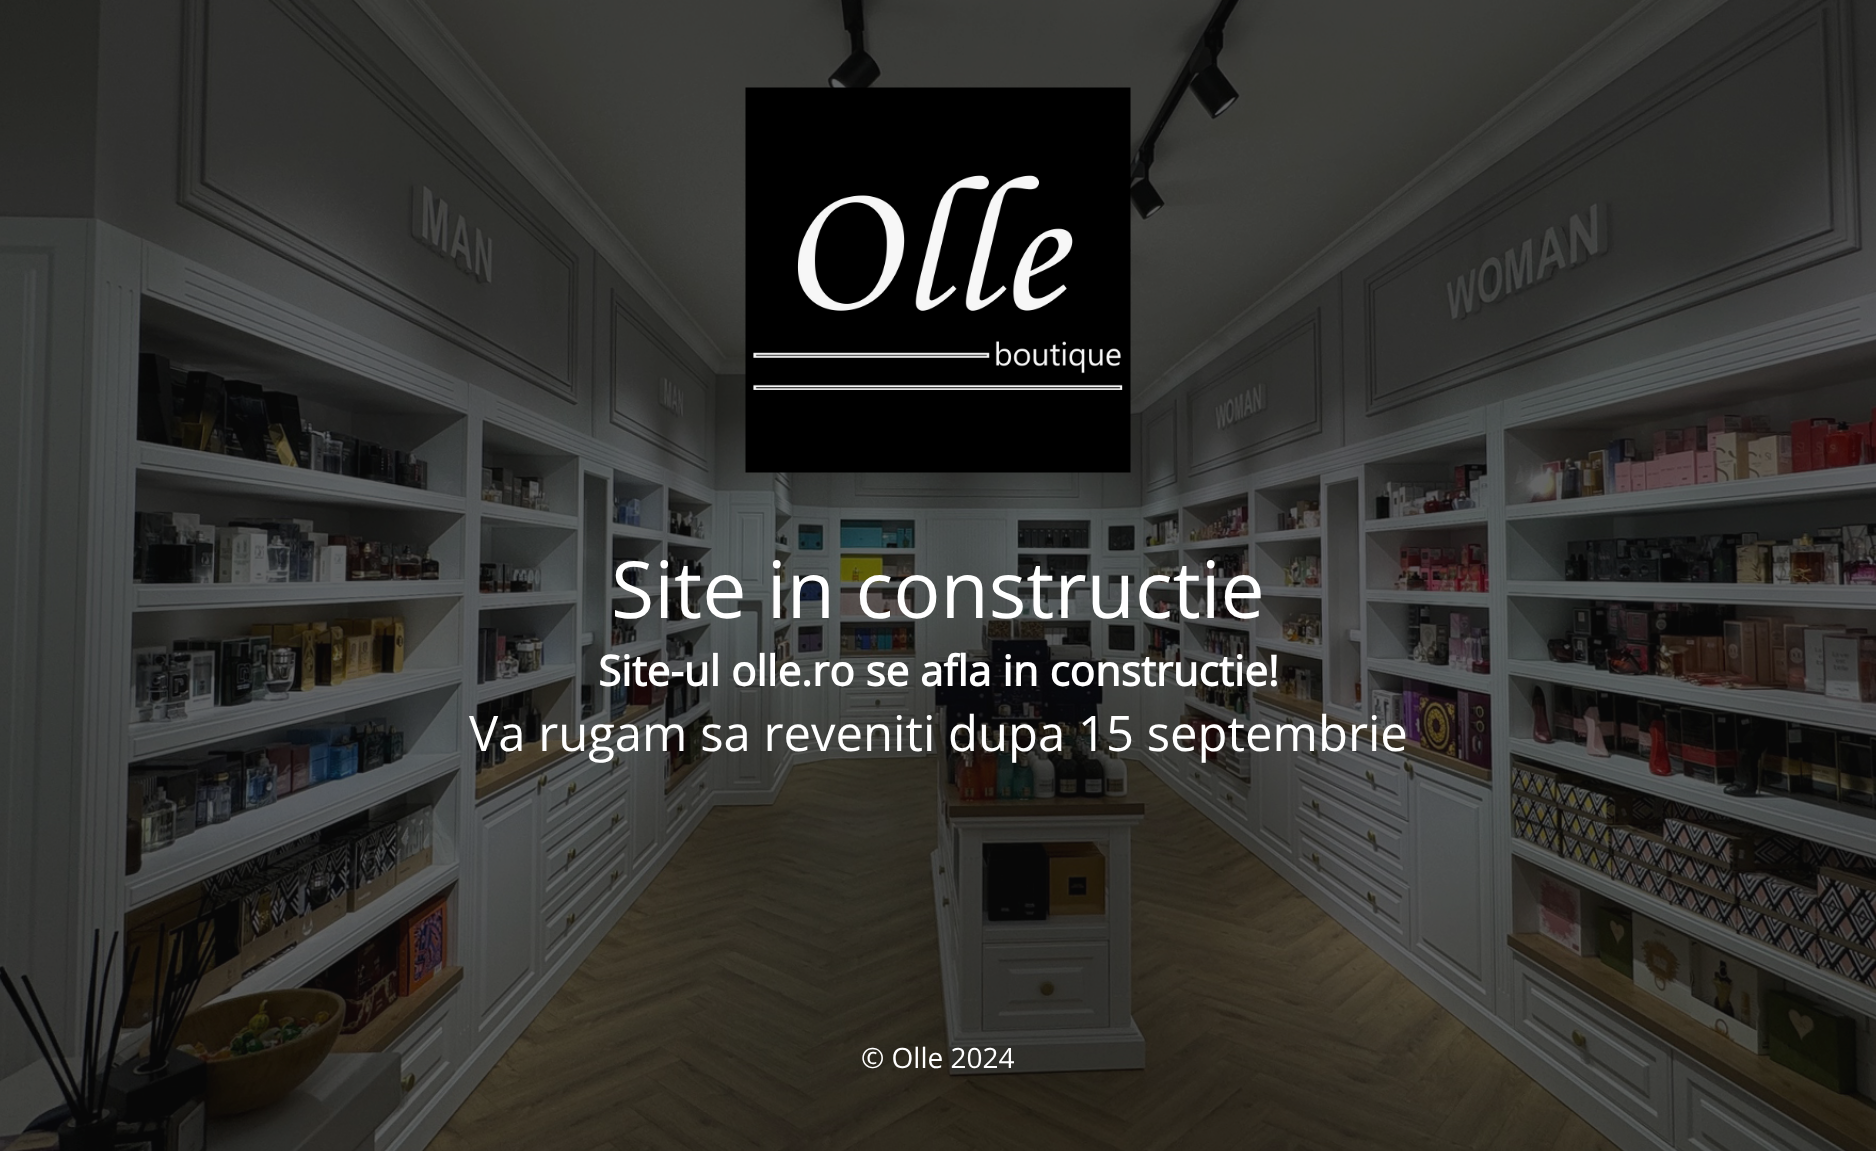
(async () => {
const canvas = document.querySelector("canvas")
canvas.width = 1876
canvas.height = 1151
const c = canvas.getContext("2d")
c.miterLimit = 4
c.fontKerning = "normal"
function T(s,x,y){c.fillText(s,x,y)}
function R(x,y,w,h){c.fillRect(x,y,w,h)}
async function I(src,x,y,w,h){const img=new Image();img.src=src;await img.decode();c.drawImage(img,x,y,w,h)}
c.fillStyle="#fff"
R(0,0,1876,1151)
await I("1.png",0,0,1876,1151)
await I("2.png",745,87,386,386)
c.font="78.75px Open Sans"
T("Site in constructie",611,618)
c.font="bold 42px Open Sans"
T("Site-ul olle.ro se afla in constructie!",598,686)
c.font="49px Open Sans"
T("Va rugam sa reveniti dupa 15 septembrie",469,751)
c.font="28px Open Sans"
T("© Olle 2024",861,1068)
})()
